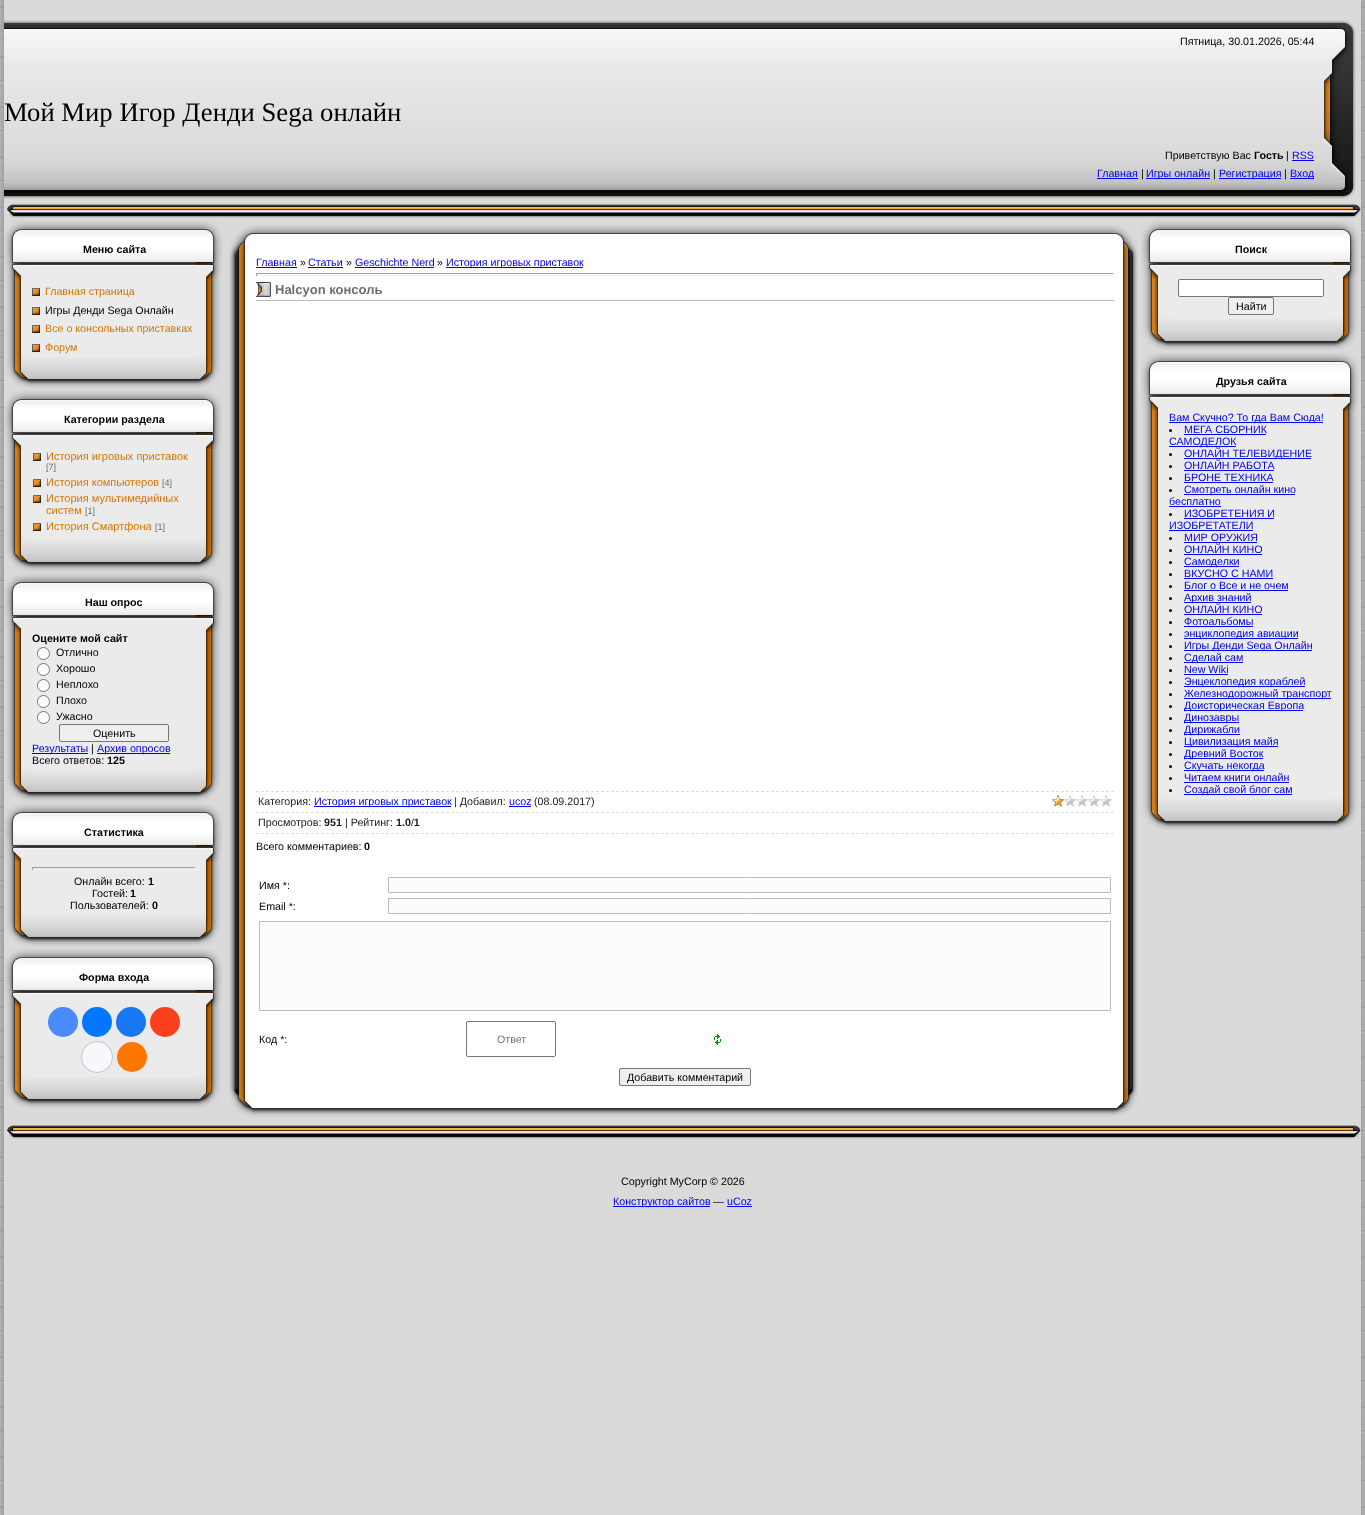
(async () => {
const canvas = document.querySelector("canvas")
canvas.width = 1365
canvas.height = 1515
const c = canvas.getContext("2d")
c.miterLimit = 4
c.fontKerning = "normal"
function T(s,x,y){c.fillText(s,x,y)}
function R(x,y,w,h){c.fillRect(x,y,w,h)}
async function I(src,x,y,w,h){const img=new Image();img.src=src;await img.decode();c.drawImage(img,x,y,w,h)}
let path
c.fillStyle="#dadada"
R(0,0,1365,1515)
await I("1.png",0,0,4,1515)
await I("2.png",4,20,1310,179)
c.font="10.7px Liberation Sans"
c.fillStyle="#000"
T("Пятница, 30.01.2026, 05:44",1180,45)
c.font="26.7px Liberation Serif"
T("Мой Мир Игор Денди Sega онлайн",4,121)
c.font="10.7px Liberation Sans"
T("Приветствую Вас",1165,159)
c.font="bold 10.7px Liberation Sans"
T("Гость",1254,159)
c.font="10.7px Liberation Sans"
T("|",1286,159)
c.fillStyle="#00e"
T("RSS",1292,159)
R(1292,160,22,1)
T("Главная",1097,177)
R(1097,178,41,1)
c.fillStyle="#000"
T("|",1141,177)
c.fillStyle="#00e"
R(1146,178,64,1)
T("Игры онлайн",1146,177)
c.fillStyle="#000"
T("|",1213,177)
c.fillStyle="#00e"
R(1219,178,62,1)
T("Регистрация",1219,177)
c.fillStyle="#000"
T("|",1284,177)
c.fillStyle="#00e"
R(1290,178,24,1)
T("Вход",1290,177)
await I("3.png",1314,16,42,184)
await I("4.png",7,204,9,14)
await I("5.png",16,204,1334,14)
await I("6.png",1350,204,11,14)
c.fillStyle="#ebebeb"
R(21,266,185,91)
await I("7.png",4,219,28,60)
await I("8.png",32,219,164,47)
c.font="bold 10.7px Liberation Sans"
c.fillStyle="#000"
T("Меню сайта",83,253)
await I("9.png",196,219,28,60)
await I("10.png",4,279,17,74)
await I("11.png",32,288,8,8)
c.font="10.7px Liberation Sans"
c.fillStyle="#d57500"
T("Главная страница",45,295)
await I("11.png",32,307,8,8)
c.fillStyle="#000"
T("Игры Денди Sega Онлайн",45,314)
await I("11.png",32,325,8,8)
c.fillStyle="#d57500"
T("Все о консольных приставках",45,332)
await I("11.png",32,344,8,8)
T("Форум",45,351)
await I("12.png",206,279,18,74)
await I("13.png",4,353,28,36)
await I("14.png",32,357,164,32)
await I("15.png",196,353,28,36)
c.fillStyle="#ebebeb"
R(21,436,185,104)
await I("7.png",4,389,28,60)
await I("8.png",32,389,164,47)
c.font="bold 10.7px Liberation Sans"
c.fillStyle="#000"
T("Категории раздела",64,423)
await I("9.png",196,389,28,60)
await I("16.png",4,449,17,87)
await I("11.png",33,453,8,8)
c.font="11px Liberation Sans"
c.fillStyle="#d57500"
T("История игровых приставок",46,460)
c.font="9px Liberation Sans"
c.fillStyle="#6e6e6e"
T("[7]",46,470)
await I("11.png",33,479,8,8)
c.font="11px Liberation Sans"
c.fillStyle="#d57500"
T("История компьютеров",46,486)
c.font="9px Liberation Sans"
c.fillStyle="#6e6e6e"
T("[4]",162,486)
await I("11.png",33,495,8,8)
c.font="11px Liberation Sans"
c.fillStyle="#d57500"
T("История мультимедийных",46,502)
T("систем",46,514)
c.font="9px Liberation Sans"
c.fillStyle="#6e6e6e"
T("[1]",85,514)
await I("11.png",33,523,8,8)
c.font="11px Liberation Sans"
c.fillStyle="#d57500"
T("История Смартфона",46,530)
c.font="9px Liberation Sans"
c.fillStyle="#6e6e6e"
T("[1]",155,530)
await I("17.png",206,449,18,87)
await I("13.png",4,536,28,36)
await I("14.png",32,540,164,32)
await I("15.png",196,536,28,36)
c.fillStyle="#ebebeb"
R(21,619,185,151)
await I("7.png",4,572,28,60)
await I("8.png",32,572,164,47)
c.font="bold 10.7px Liberation Sans"
c.fillStyle="#000"
T("Наш опрос",85,606)
await I("9.png",196,572,28,60)
await I("18.png",4,632,17,134)
T("Оцените мой сайт",32,642)
c.fillStyle="#fff"
c.beginPath()
c.arc(43.5,653.5,6,0,7)
c.fill()
c.strokeStyle="#767676"
c.stroke()
c.font="10.7px Liberation Sans"
c.fillStyle="#000"
T("Отлично",56,656)
c.fillStyle="#fff"
c.beginPath()
c.arc(43.5,669.5,6,0,7)
c.fill()
c.stroke()
c.fillStyle="#000"
T("Хорошо",56,672)
c.fillStyle="#fff"
c.beginPath()
c.arc(43.5,685.5,6,0,7)
c.fill()
c.stroke()
c.fillStyle="#000"
T("Неплохо",56,688)
c.fillStyle="#fff"
c.beginPath()
c.arc(43.5,701.5,6,0,7)
c.fill()
c.stroke()
c.fillStyle="#000"
T("Плохо",56,704)
c.fillStyle="#fff"
c.beginPath()
c.arc(43.5,717.5,6,0,7)
c.fill()
c.stroke()
c.fillStyle="#000"
T("Ужасно",56,720)
c.fillStyle="#efefef"
c.beginPath()
c.roundRect(59.5,724.5,109,17,1.5)
c.fill()
c.stroke()
c.fillStyle="#000"
T("Оценить",93,737)
c.fillStyle="#00e"
R(32,753,56,1)
T("Результаты",32,752)
c.fillStyle="#000"
T("|",91,752)
c.fillStyle="#00e"
R(97,753,73,1)
T("Архив опросов",97,752)
c.fillStyle="#000"
T("Всего ответов:",32,764)
c.font="bold 10.7px Liberation Sans"
T("125",107,764)
await I("19.png",206,632,18,134)
await I("13.png",4,766,28,36)
await I("14.png",32,770,164,32)
await I("15.png",196,766,28,36)
c.fillStyle="#ebebeb"
R(21,849,185,66)
await I("7.png",4,802,28,60)
await I("8.png",32,802,164,47)
c.fillStyle="#000"
T("Статистика",84,836)
await I("9.png",196,802,28,60)
await I("20.png",4,862,17,49)
c.fillStyle="#9f9f9f"
R(32,867,164,1)
c.fillStyle="#eee"
R(195,867,1,3)
R(32,869,164,1)
c.fillStyle="#9f9f9f"
R(32,867,1,3)
c.font="10.7px Liberation Sans"
c.fillStyle="#000"
T("Онлайн всего:",74,885)
c.font="bold 10.7px Liberation Sans"
T("1",148,885)
c.font="10.7px Liberation Sans"
T("Гостей:",92,897)
c.font="bold 10.7px Liberation Sans"
T("1",130,897)
c.font="10.7px Liberation Sans"
T("Пользователей:",70,909)
c.font="bold 10.7px Liberation Sans"
T("0",152,909)
await I("21.png",206,862,18,49)
await I("13.png",4,911,28,36)
await I("14.png",32,915,164,32)
await I("15.png",196,911,28,36)
c.fillStyle="#ebebeb"
R(21,994,185,83)
await I("7.png",4,947,28,60)
await I("8.png",32,947,164,47)
c.fillStyle="#000"
T("Форма входа",79,981)
await I("9.png",196,947,28,60)
await I("22.png",4,1007,17,66)
c.fillStyle="#498bfa"
c.beginPath()
c.arc(63,1022,15,0,7)
c.fill()
c.fillStyle="#07f"
c.beginPath()
c.arc(97,1022,15,0,7)
c.fill()
c.fillStyle="#1877f2"
c.beginPath()
c.arc(131,1022,15,0,7)
c.fill()
c.fillStyle="#fc3f1d"
c.beginPath()
c.arc(165,1022,15,0,7)
c.fill()
c.fillStyle="#f8f8fc"
c.beginPath()
c.arc(97,1057,15.5,0,7)
c.fill()
c.strokeStyle="#c4c4c4"
c.stroke()
c.fillStyle="#f70"
c.beginPath()
c.arc(132,1057,15,0,7)
c.fill()
await I("23.png",206,1007,18,66)
await I("13.png",4,1073,28,36)
await I("14.png",32,1077,164,32)
await I("15.png",196,1073,28,36)
c.fillStyle="#fff"
R(245,234,878,874)
await I("24.png",224,219,32,37)
await I("25.png",256,219,858,15)
await I("26.png",1114,219,27,37)
await I("27.png",224,256,21,833)
c.font="10.7px Liberation Sans"
c.fillStyle="#00e"
T("Главная",256,266)
R(256,267,41,1)
c.fillStyle="#000"
T("»",300,266)
c.fillStyle="#00e"
T("Статьи",308,266)
R(308,267,35,1)
c.fillStyle="#000"
T("»",346,266)
c.fillStyle="#00e"
T("Geschichte Nerd",355,266)
R(355,267,79,1)
c.fillStyle="#000"
T("»",437,266)
c.fillStyle="#00e"
R(446,267,137,1)
T("История игровых приставок",446,266)
c.fillStyle="#9f9f9f"
R(256,273,858,1)
c.fillStyle="#eee"
R(1113,273,1,3)
R(256,275,858,1)
c.fillStyle="#9f9f9f"
R(256,273,1,3)
await I("28.png",256,282,15,15)
c.font="bold 13px Liberation Sans"
c.fillStyle="#6e6e6e"
T("Halcyon консоль",275,294)
c.fillStyle="#bcbcbc"
R(256,300,858,1)
path = new Path2D("M256 791.5h858")
c.strokeStyle="#ddd"
c.setLineDash([3,2])
c.stroke(path)
path = new Path2D("M256 812.5h858")
c.stroke(path)
c.font="10.7px Liberation Sans"
c.fillStyle="#1a1a1a"
T("Категория:",258,805)
c.fillStyle="#00e"
R(314,806,137,1)
T("История игровых приставок",314,805)
c.fillStyle="#1a1a1a"
T("| Добавил:",454,805)
c.fillStyle="#00e"
T("ucoz",509,805)
R(509,806,22,1)
c.fillStyle="#1a1a1a"
T("(08.09.2017)",534,805)
await I("29.png",1052,795,60,12)
await I("30.png",1052,795,12,12)
path = new Path2D("M256 833.5h858")
c.stroke(path)
T("Просмотров:",258,826)
c.font="bold 10.7px Liberation Sans"
T("951",324,826)
c.font="10.7px Liberation Sans"
T("| Рейтинг:",345,826)
c.font="bold 10.7px Liberation Sans"
T("1.0 1",396,826)
c.font="10.7px Liberation Sans"
T("/",411,826)
c.fillStyle="#000"
T("Всего комментариев:",256,850)
c.font="bold 10.7px Liberation Sans"
T("0",364,850)
c.font="10.7px Liberation Sans"
T("Имя *:",259,889)
c.fillStyle="#fcfcfc"
c.beginPath()
c.rect(388.5,877.5,722,15)
c.fill()
c.strokeStyle="#bcbcbc"
c.setLineDash([])
c.stroke()
c.fillStyle="#000"
T("Email *:",259,910)
c.fillStyle="#fcfcfc"
c.beginPath()
c.rect(388.5,898.5,722,15)
c.fill()
c.stroke()
c.beginPath()
c.rect(259.5,921.5,851,89)
c.fill()
c.stroke()
c.fillStyle="#000"
T("Код *:",259,1043)
c.beginPath()
c.roundRect(466.5,1021.5,89,35,1.5)
c.strokeStyle="#767676"
c.stroke()
c.fillStyle="#757575"
T("Ответ",497,1043)
await I("31.png",714,1034,7,11)
c.fillStyle="#efefef"
c.beginPath()
c.roundRect(619.5,1068.5,131,17,1.5)
c.fill()
c.stroke()
c.fillStyle="#000"
T("Добавить комментарий",627,1081)
await I("32.png",1123,256,18,833)
await I("33.png",224,1089,32,34)
await I("34.png",256,1108,858,15)
await I("35.png",1114,1089,27,34)
c.fillStyle="#ebebeb"
R(1158,266,185,53)
await I("7.png",1141,219,28,60)
await I("8.png",1169,219,164,47)
c.font="bold 10.7px Liberation Sans"
c.fillStyle="#000"
T("Поиск",1235,253)
await I("9.png",1333,219,28,60)
await I("36.png",1141,279,17,36)
c.fillStyle="#fff"
c.beginPath()
c.roundRect(1178.5,279.5,145,17,1.5)
c.fill()
c.stroke()
c.fillStyle="#efefef"
c.beginPath()
c.roundRect(1228.5,297.5,45,17,1.5)
c.fill()
c.stroke()
c.font="10.7px Liberation Sans"
c.fillStyle="#000"
T("Найти",1236,310)
await I("37.png",1343,279,18,36)
await I("13.png",1141,315,28,36)
await I("14.png",1169,319,164,32)
await I("15.png",1333,315,28,36)
c.fillStyle="#ebebeb"
R(1158,398,185,401)
await I("7.png",1141,351,28,60)
await I("8.png",1169,351,164,47)
c.font="bold 10.7px Liberation Sans"
c.fillStyle="#000"
T("Друзья сайта",1216,385)
await I("9.png",1333,351,28,60)
await I("38.png",1141,411,17,384)
c.fillStyle="#00e"
R(1169,422,154,1)
c.font="10.7px Liberation Sans"
T("Вам Скучно? То гда Вам Сюда!",1169,421)
c.fillStyle="#000"
c.beginPath()
c.arc(1170.5,430.5,1.5,0,7)
c.fill()
c.fillStyle="#00e"
T("МЕГА СБОРНИК",1184,433)
R(1184,434,82,1)
R(1169,446,67,1)
T("САМОДЕЛОК",1169,445)
c.fillStyle="#000"
c.beginPath()
c.arc(1170.5,454.5,1.5,0,7)
c.fill()
c.fillStyle="#00e"
R(1184,458,127,1)
T("ОНЛАЙН ТЕЛЕВИДЕНИЕ",1184,457)
c.fillStyle="#000"
c.beginPath()
c.arc(1170.5,466.5,1.5,0,7)
c.fill()
c.fillStyle="#00e"
T("ОНЛАЙН РАБОТА",1184,469)
R(1184,470,90,1)
c.fillStyle="#000"
c.beginPath()
c.arc(1170.5,478.5,1.5,0,7)
c.fill()
c.fillStyle="#00e"
T("БРОНЕ ТЕХНИКА",1184,481)
R(1184,482,89,1)
c.fillStyle="#000"
c.beginPath()
c.arc(1170.5,490.5,1.5,0,7)
c.fill()
c.fillStyle="#00e"
R(1184,494,111,1)
T("Смотреть онлайн кино",1184,493)
T("бесплатно",1169,505)
R(1169,506,52,1)
c.fillStyle="#000"
c.beginPath()
c.arc(1170.5,514.5,1.5,0,7)
c.fill()
c.fillStyle="#00e"
T("ИЗОБРЕТЕНИЯ И",1184,517)
R(1184,518,90,1)
T("ИЗОБРЕТАТЕЛИ",1169,529)
R(1169,530,84,1)
c.fillStyle="#000"
c.beginPath()
c.arc(1170.5,538.5,1.5,0,7)
c.fill()
c.fillStyle="#00e"
T("МИР ОРУЖИЯ",1184,541)
R(1184,542,73,1)
c.fillStyle="#000"
c.beginPath()
c.arc(1170.5,550.5,1.5,0,7)
c.fill()
c.fillStyle="#00e"
T("ОНЛАЙН КИНО",1184,553)
R(1184,554,78,1)
c.fillStyle="#000"
c.beginPath()
c.arc(1170.5,562.5,1.5,0,7)
c.fill()
c.fillStyle="#00e"
R(1184,566,55,1)
T("Самоделки",1184,565)
c.fillStyle="#000"
c.beginPath()
c.arc(1170.5,574.5,1.5,0,7)
c.fill()
c.fillStyle="#00e"
T("ВКУСНО С НАМИ",1184,577)
R(1184,578,89,1)
c.fillStyle="#000"
c.beginPath()
c.arc(1170.5,586.5,1.5,0,7)
c.fill()
c.fillStyle="#00e"
T("Блог о Все и не очем",1184,589)
R(1184,590,104,1)
c.fillStyle="#000"
c.beginPath()
c.arc(1170.5,598.5,1.5,0,7)
c.fill()
c.fillStyle="#00e"
R(1184,602,67,1)
T("Архив знаний",1184,601)
c.fillStyle="#000"
c.beginPath()
c.arc(1170.5,610.5,1.5,0,7)
c.fill()
c.fillStyle="#00e"
T("ОНЛАЙН КИНО",1184,613)
R(1184,614,78,1)
c.fillStyle="#000"
c.beginPath()
c.arc(1170.5,622.5,1.5,0,7)
c.fill()
c.fillStyle="#00e"
T("Фотоальбомы",1184,625)
R(1184,626,69,1)
c.fillStyle="#000"
c.beginPath()
c.arc(1170.5,634.5,1.5,0,7)
c.fill()
c.fillStyle="#00e"
R(1184,638,114,1)
T("энциклопедия авиации",1184,637)
c.fillStyle="#000"
c.beginPath()
c.arc(1170.5,646.5,1.5,0,7)
c.fill()
c.fillStyle="#00e"
R(1184,650,128,1)
T("Игры Денди Sega Онлайн",1184,649)
c.fillStyle="#000"
c.beginPath()
c.arc(1170.5,658.5,1.5,0,7)
c.fill()
c.fillStyle="#00e"
R(1184,662,59,1)
T("Сделай сам",1184,661)
c.fillStyle="#000"
c.beginPath()
c.arc(1170.5,670.5,1.5,0,7)
c.fill()
c.fillStyle="#00e"
T("New Wiki",1184,673)
R(1184,674,44,1)
c.fillStyle="#000"
c.beginPath()
c.arc(1170.5,682.5,1.5,0,7)
c.fill()
c.fillStyle="#00e"
R(1184,686,121,1)
T("Энцеклопедия кораблей",1184,685)
c.fillStyle="#000"
c.beginPath()
c.arc(1170.5,694.5,1.5,0,7)
c.fill()
c.fillStyle="#00e"
R(1184,698,147,1)
T("Железнодорожный транспорт",1184,697)
c.fillStyle="#000"
c.beginPath()
c.arc(1170.5,706.5,1.5,0,7)
c.fill()
c.fillStyle="#00e"
R(1184,710,119,1)
T("Доисторическая Европа",1184,709)
c.fillStyle="#000"
c.beginPath()
c.arc(1170.5,718.5,1.5,0,7)
c.fill()
c.fillStyle="#00e"
R(1184,722,55,1)
T("Динозавры",1184,721)
c.fillStyle="#000"
c.beginPath()
c.arc(1170.5,730.5,1.5,0,7)
c.fill()
c.fillStyle="#00e"
R(1184,734,56,1)
T("Дирижабли",1184,733)
c.fillStyle="#000"
c.beginPath()
c.arc(1170.5,742.5,1.5,0,7)
c.fill()
c.fillStyle="#00e"
R(1184,746,94,1)
T("Цивилизация майя",1184,745)
c.fillStyle="#000"
c.beginPath()
c.arc(1170.5,754.5,1.5,0,7)
c.fill()
c.fillStyle="#00e"
R(1184,758,79,1)
T("Древний Восток",1184,757)
c.fillStyle="#000"
c.beginPath()
c.arc(1170.5,766.5,1.5,0,7)
c.fill()
c.fillStyle="#00e"
R(1184,770,80,1)
T("Скучать некогда",1184,769)
c.fillStyle="#000"
c.beginPath()
c.arc(1170.5,778.5,1.5,0,7)
c.fill()
c.fillStyle="#00e"
T("Читаем книги онлайн",1184,781)
R(1184,782,105,1)
c.fillStyle="#000"
c.beginPath()
c.arc(1170.5,790.5,1.5,0,7)
c.fill()
c.fillStyle="#00e"
R(1184,794,108,1)
T("Создай свой блог сам",1184,793)
await I("39.png",1343,411,18,384)
await I("13.png",1141,795,28,36)
await I("14.png",1169,799,164,32)
await I("15.png",1333,795,28,36)
await I("4.png",7,1125,9,14)
await I("5.png",16,1125,1334,14)
await I("6.png",1350,1125,11,14)
c.fillStyle="#000"
T("Copyright MyCorp © 2026",621,1185)
c.fillStyle="#00e"
R(613,1206,97,1)
T("Конструктор сайтов",613,1205)
c.fillStyle="#000"
T("—",713,1205)
c.fillStyle="#00e"
T("uCoz",727,1205)
R(727,1206,25,1)
await I("40.png",1361,0,4,1515)
})()
